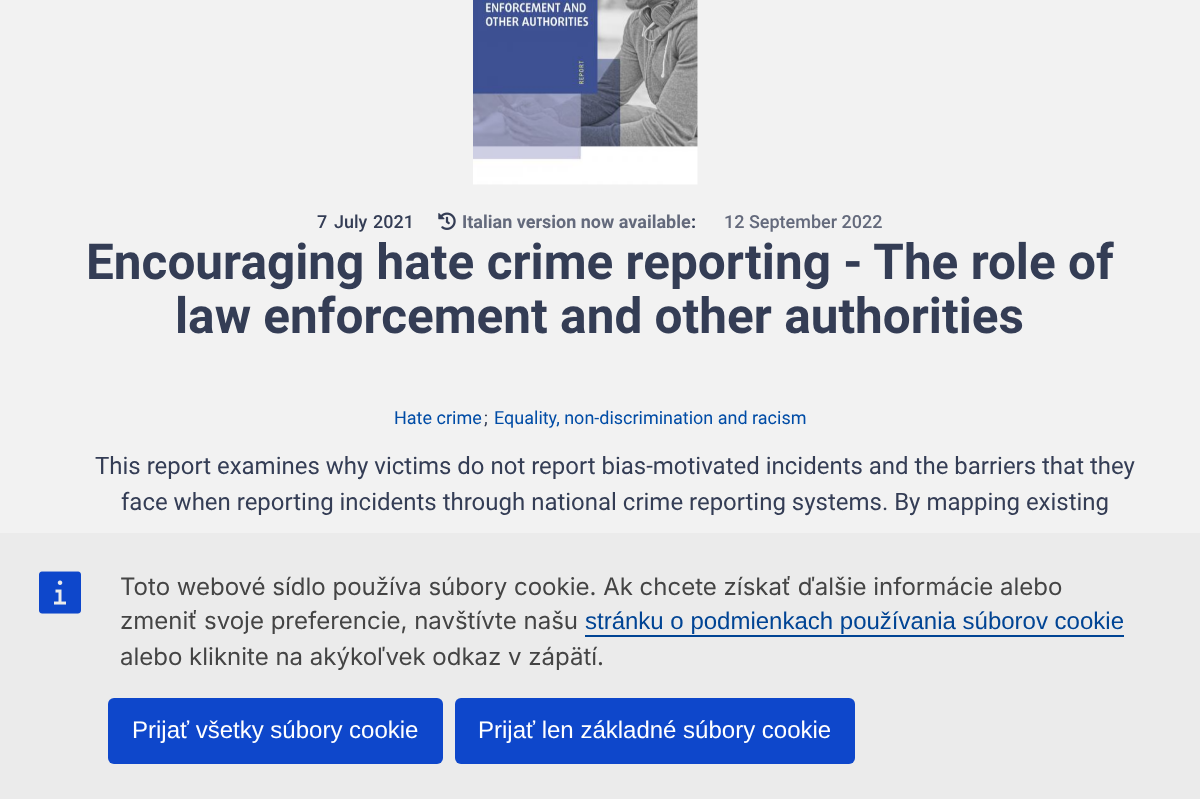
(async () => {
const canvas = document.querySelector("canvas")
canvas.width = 1200
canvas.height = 799
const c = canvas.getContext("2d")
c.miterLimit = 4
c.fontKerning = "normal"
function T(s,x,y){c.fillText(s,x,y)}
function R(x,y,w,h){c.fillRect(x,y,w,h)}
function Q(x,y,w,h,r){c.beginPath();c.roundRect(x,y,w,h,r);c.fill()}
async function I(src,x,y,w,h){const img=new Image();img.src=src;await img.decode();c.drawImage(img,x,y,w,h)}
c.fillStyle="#f2f2f2"
R(0,0,1200,799)
await I("1.png",473,0,225,185)
c.font="500 18px Roboto"
c.fillStyle="#343d55"
T("7",317,228)
T("July",334,228)
T("2021",373,228)
await I("2.png",438,212,18,18)
c.font="bold 18px Roboto"
c.fillStyle="#646a7c"
T("Italian version now available",462,228)
c.fillStyle="#343d55"
T(":",691,228)
c.font="500 18px Roboto"
c.fillStyle="#646a7c"
T("12 September 2022",724,228)
c.font="bold 49.5px Roboto"
c.fillStyle="#343d55"
T("Encouraging hate crime reporting - The role of",86,279)
T("law enforcement and other authorities",175,333)
c.font="18px Roboto"
c.fillStyle="#004ca6"
T("Hate crime",394,424)
c.fillStyle="#343d55"
T(";",484,424)
c.fillStyle="#004ca6"
T("Equality, non-discrimination and racism",494,424)
c.font="24px Roboto"
c.fillStyle="#343d55"
T("This report examines why victims do not report bias-motivated incidents and the barriers that they",95,474)
T("face when reporting incidents through national crime reporting systems. By mapping existing",121,510)
c.fillStyle="#ebebeb"
R(0,533,1200,266)
await I("3.png",39,571,42,43)
c.font="24px Inter"
c.fillStyle="#444"
T("Toto webové sídlo používa súbory cookie. Ak chcete získať ďalšie informácie alebo",120,595)
T("zmeniť svoje preferencie, navštívte našu",120,629)
c.font="24px Liberation Sans"
c.fillStyle="#004494"
T("stránku o podmienkach používania súborov cookie",585,629)
R(585,635,539,2)
c.font="24px Inter"
c.fillStyle="#444"
T("alebo kliknite na akýkoľvek odkaz v zápätí.",120,665)
c.fillStyle="#0e47cb"
Q(108,698,335,66,6)
c.font="24px Liberation Sans"
c.fillStyle="#fff"
T("Prijať všetky súbory cookie",132,738)
c.fillStyle="#0e47cb"
Q(455,698,400,66,6)
c.fillStyle="#fff"
T("Prijať len základné súbory cookie",478,738)
})()
